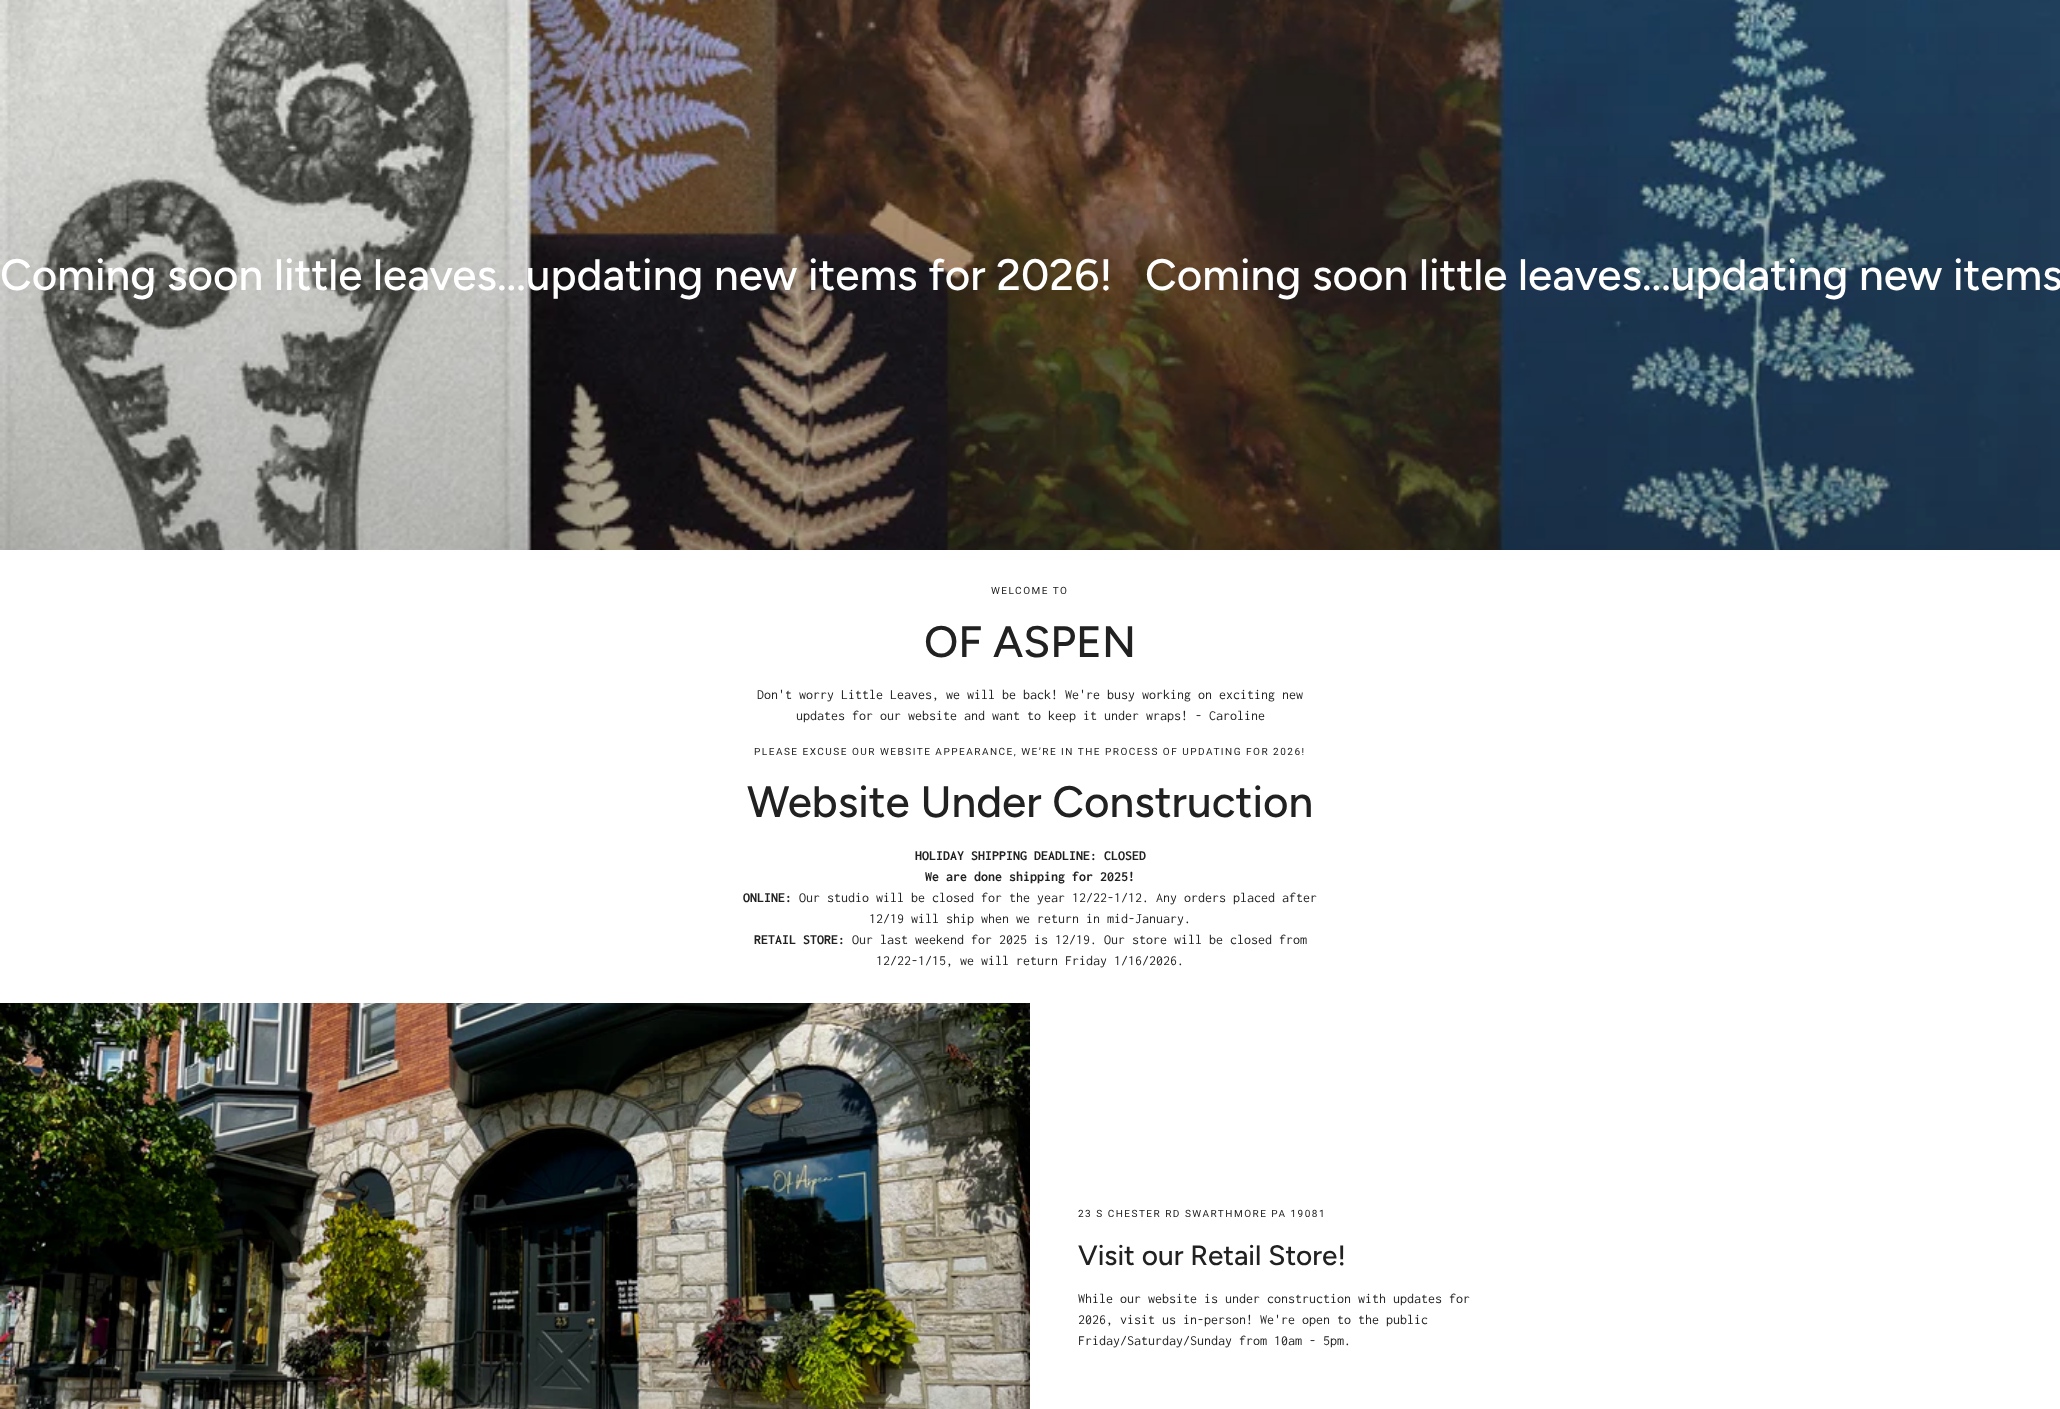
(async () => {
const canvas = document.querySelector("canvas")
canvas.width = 2060
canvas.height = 1409
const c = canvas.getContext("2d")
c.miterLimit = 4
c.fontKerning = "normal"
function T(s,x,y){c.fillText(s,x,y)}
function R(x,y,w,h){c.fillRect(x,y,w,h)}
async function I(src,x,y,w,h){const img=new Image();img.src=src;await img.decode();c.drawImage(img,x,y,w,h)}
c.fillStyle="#fff"
R(0,0,2060,1409)
await I("1.png",0,0,2060,550)
c.font="500 44px Figtree"
T("Coming soon little leaves...updating new items for 2026!",0,290)
T("Coming soon little leaves...updating new items",1145,290)
c.letterSpacing="1.5px"
c.font="10px Roboto"
c.fillStyle="#212121"
T("WELCOME TO",991,594)
c.letterSpacing="0px"
c.font="500 44px Figtree"
T("OF ASPEN",924,657)
c.font="14px Inconsolata"
T("Don't worry Little Leaves, we will be back! We're busy working on exciting new",757,699)
T("updates for our website and want to keep it under wraps! - Caroline",796,720)
c.letterSpacing="1.5px"
c.font="10px Roboto"
T("PLEASE EXCUSE OUR WEBSITE APPEARANCE, WE’RE IN THE PROCESS OF UPDATING FOR 2026!",754,755)
c.letterSpacing="0px"
c.font="500 44px Figtree"
T("Website Under Construction",747,817)
c.font="bold 14px Inconsolata"
T("HOLIDAY SHIPPING DEADLINE: CLOSED",915,860)
T("We are done shipping for 2025!",925,881)
T("ONLINE:",743,902)
c.font="14px Inconsolata"
T("Our studio will be closed for the year 12/22-1/12. Any orders placed after",799,902)
T("12/19 will ship when we return in mid-January.",869,923)
c.font="bold 14px Inconsolata"
T("RETAIL STORE:",754,944)
c.font="14px Inconsolata"
T("Our last weekend for 2025 is 12/19. Our store will be closed from",852,944)
T("12/22-1/15, we will return Friday 1/16/2026.",876,965)
await I("2.png",0,1003,1030,406)
c.letterSpacing="1.5px"
c.font="10px Roboto"
T("23 S CHESTER RD SWARTHMORE PA 19081",1078,1217)
c.letterSpacing="0px"
c.font="500 28px Figtree"
T("Visit our Retail Store!",1078,1265)
c.font="14px Inconsolata"
T("While our website is under construction with updates for",1078,1303)
T("2026, visit us in-person! We're open to the public",1078,1324)
T("Friday/Saturday/Sunday from 10am - 5pm.",1078,1345)
})()
